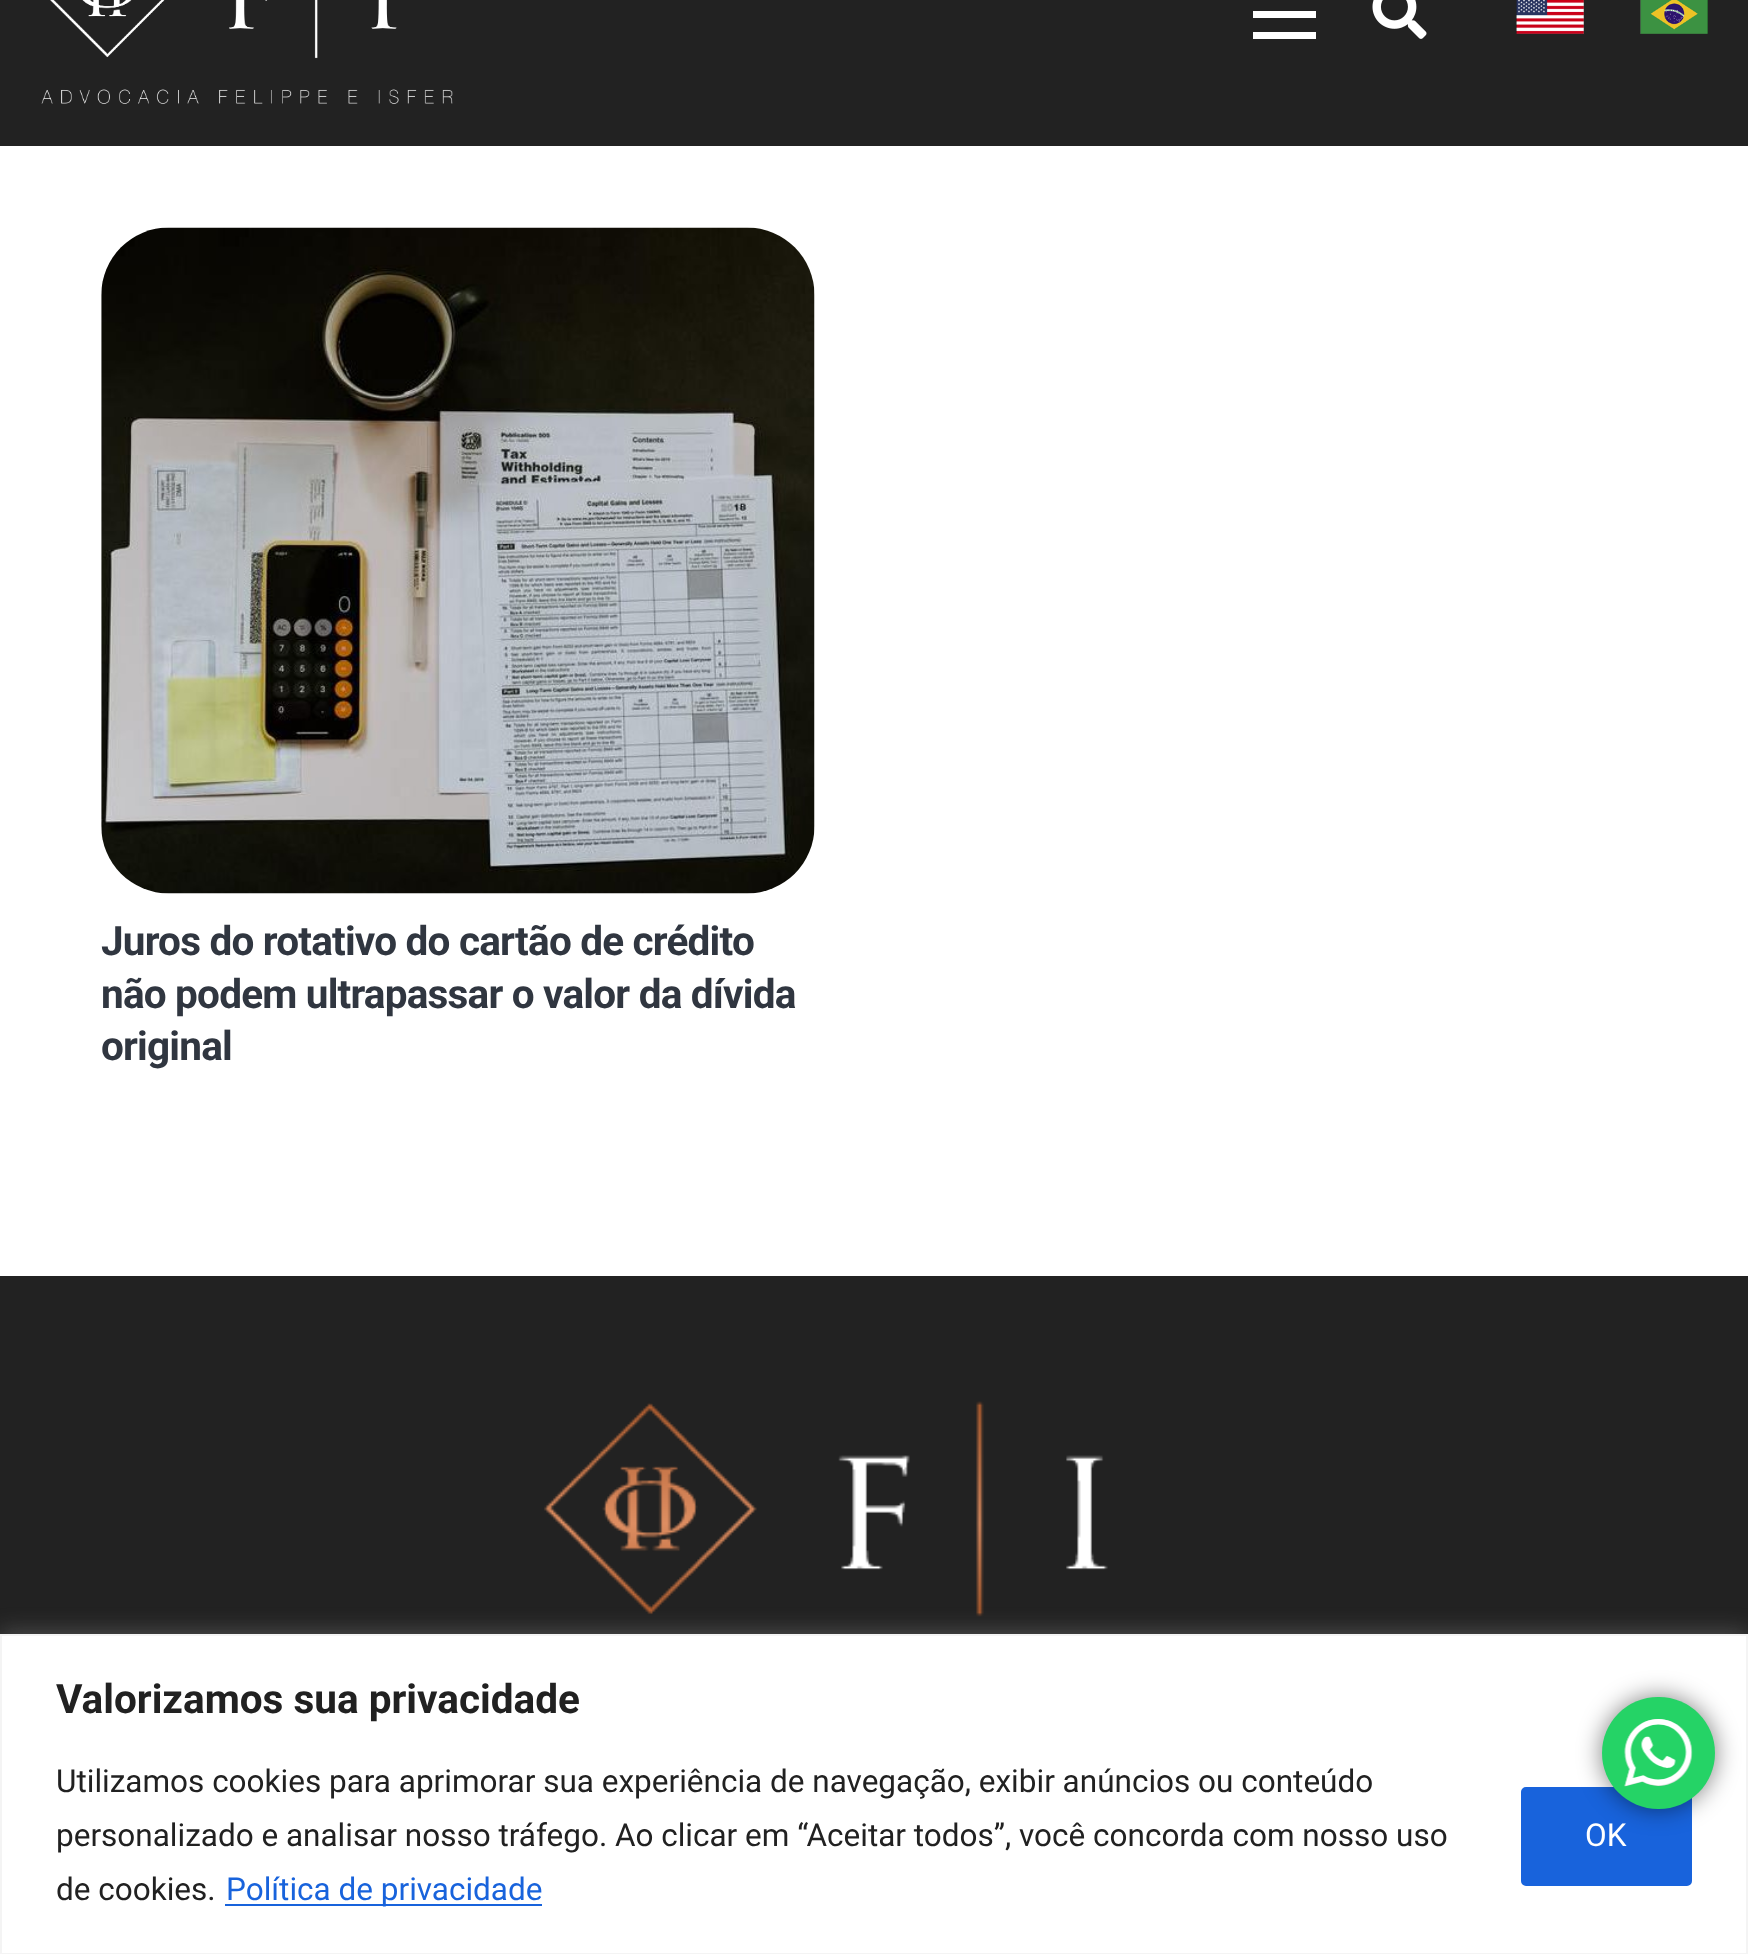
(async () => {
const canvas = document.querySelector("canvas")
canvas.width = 1748
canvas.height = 1954
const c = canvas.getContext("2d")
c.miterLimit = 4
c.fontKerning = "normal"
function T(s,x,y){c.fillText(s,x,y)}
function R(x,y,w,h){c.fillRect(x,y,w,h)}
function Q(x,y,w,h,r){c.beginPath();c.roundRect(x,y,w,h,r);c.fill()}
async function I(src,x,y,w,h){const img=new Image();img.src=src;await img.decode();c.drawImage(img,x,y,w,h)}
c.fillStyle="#fff"
R(0,0,1748,1954)
c.fillStyle="#222"
R(0,0,1748,146)
await I("1.png",41,0,412,104)
c.fillStyle="#fff"
R(1253,11,63,7)
R(1253,32,63,7)
await I("2.png",1372,0,55,39)
await I("3.png",1516,0,68,34)
await I("4.png",1640,0,68,34)
await I("5.png",101,227,714,667)
c.letterSpacing="-0.8px"
c.font="bold 40.5px Roboto"
c.fillStyle="#303640"
T("Juros do rotativo do cartão de crédito",101,955)
T("não podem ultrapassar o valor da dívida",101,1008)
T("original",101,1060)
c.fillStyle="#222"
R(0,1276,1748,358)
await I("6.png",544,1401,564,216)
c.fillStyle="#acabab4d"
c.filter="blur(11px)"
c.beginPath()
c.rect(0,1631,1748,322)
c.fill()
c.filter="none"
c.fillStyle="#fff"
c.beginPath()
c.rect(1,1635,1746,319)
c.fill()
c.strokeStyle="#f4f4f4"
c.lineWidth=2
c.stroke()
c.letterSpacing="0px"
c.fillStyle="#212121"
T("Valorizamos sua privacidade",56,1713)
c.font="31.5px Roboto"
T("Utilizamos cookies para aprimorar sua experiência de navegação, exibir anúncios ou conteúdo",56,1792)
T("personalizado e analisar nosso tráfego. Ao clicar em “Aceitar todos”, você concorda com nosso uso",56,1846)
T("de cookies.",56,1900)
c.fillStyle="#1863dc"
R(225,1904,317,2)
T("Política de privacidade",226,1900)
c.beginPath()
c.roundRect(1523.5,1789.5,166,94,2.5)
c.fill()
c.strokeStyle="#1863dc"
c.lineWidth=5
c.stroke()
c.fillStyle="#fff"
T("OK",1585,1846)
c.fillStyle="#00000080"
c.filter="blur(12.5px)"
c.beginPath()
c.roundRect(1602,1697,113,112,56)
c.fill()
c.filter="none"
c.fillStyle="#25d366"
Q(1602,1697,113,112,56)
await I("7.png",1624,1719,69,68)
})()
